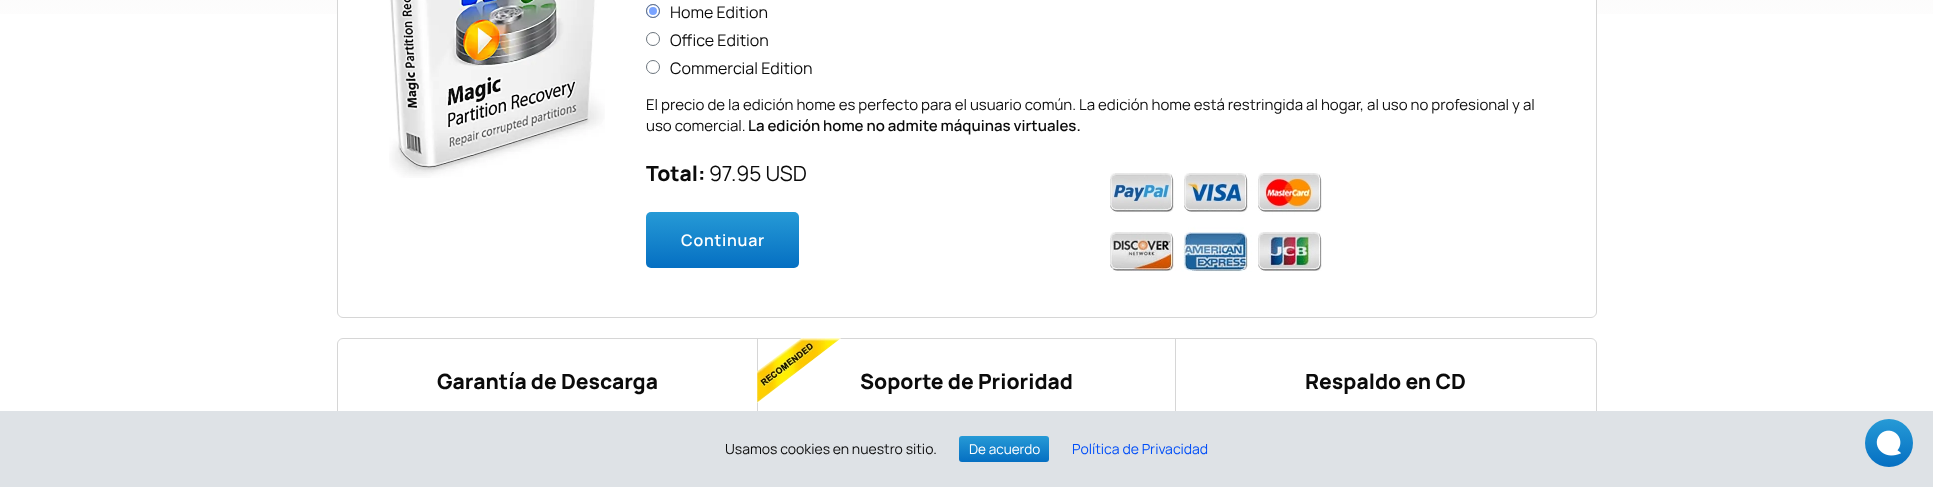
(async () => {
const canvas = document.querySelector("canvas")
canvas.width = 1933
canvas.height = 487
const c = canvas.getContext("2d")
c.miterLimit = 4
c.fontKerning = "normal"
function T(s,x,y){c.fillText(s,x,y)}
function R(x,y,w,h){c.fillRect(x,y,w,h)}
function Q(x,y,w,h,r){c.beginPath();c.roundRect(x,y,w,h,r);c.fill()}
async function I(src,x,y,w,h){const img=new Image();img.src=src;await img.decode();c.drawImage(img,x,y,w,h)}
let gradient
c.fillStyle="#fff"
R(0,0,1933,487)
gradient = c.createLinearGradient(967,-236,967,64)
gradient.addColorStop(0,"#f3f0f0")
gradient.addColorStop(1,"#fff")
c.fillStyle = gradient
R(0,0,1933,14)
c.fillStyle="#fff"
c.beginPath()
c.roundRect(337.5,-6.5,1259,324,5.5)
c.fill()
c.strokeStyle="#d6d6d6"
c.stroke()
await I("1.png",389,0,216,178)
c.fillStyle="#79a3ff"
c.beginPath()
c.arc(653,11,7,0,7)
c.fill()
c.beginPath()
c.arc(653,11,5,0,7)
c.strokeStyle="#fff"
c.lineWidth=2
c.stroke()
c.beginPath()
c.arc(653,11,6.5,0,7)
c.strokeStyle="#6c757d"
c.lineWidth=1
c.stroke()
c.font="16px Manrope"
c.fillStyle="#0b0b0b"
T("Home Edition",670,18)
c.beginPath()
c.arc(653,39,6.5,0,7)
c.stroke()
T("Office Edition",670,46)
c.beginPath()
c.arc(653,67,6.5,0,7)
c.stroke()
T("Commercial Edition",670,74)
c.font="15px Manrope"
T("El precio de la edición home es perfecto para el usuario común. La edición home está restringida al hogar, al uso no profesional y al",646,110)
T("uso comercial.",646,131)
c.font="600 15px Manrope"
T("La edición home no admite máquinas virtuales.",748,131)
c.font="800 21px Manrope"
T("Total:",646,181)
c.font="21px Manrope"
T("97.95 USD",709,181)
gradient = c.createLinearGradient(723,212,723,268)
gradient.addColorStop(0,"#269ad6")
gradient.addColorStop(1,"#056fc2")
c.fillStyle = gradient
Q(646,212,153,56,5)
c.letterSpacing="0.75px"
c.font="600 16px Manrope"
c.fillStyle="#fff"
T("Continuar",681,246)
await I("2.png",1110,173,212,99)
c.beginPath()
c.roundRect(337.5,338.5,1259,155,5.5)
c.strokeStyle="#d6d6d6"
c.stroke()
c.letterSpacing="0px"
c.font="800 21px Manrope"
c.fillStyle="#0b0b0b"
T("Garantía de Descarga",437,389)
c.fillStyle="#d6d6d6"
R(1175,339,1,72)
R(757,339,1,72)
await I("3.png",757,338,84,65)
c.fillStyle="#0b0b0b"
T("Soporte de Prioridad",860,389)
T("Respaldo en CD",1305,389)
c.fillStyle="#dee2e6"
R(0,411,1933,76)
c.font="14px Manrope"
c.fillStyle="#0b0b0b"
T("Usamos cookies en nuestro sitio.",725,454)
gradient = c.createLinearGradient(1004,436,1004,462)
gradient.addColorStop(0,"#269ad6")
gradient.addColorStop(1,"#056fc2")
c.fillStyle = gradient
Q(959,436,90,26,3)
c.font="13.5px Manrope"
c.fillStyle="#fff"
T("De acuerdo",969,454)
c.font="14px Manrope"
c.fillStyle="#004ef8"
T("Política de Privacidad",1072,454)
gradient = c.createLinearGradient(1889,419,1889,467)
gradient.addColorStop(0,"#269ad6")
gradient.addColorStop(1,"#056fc2")
c.fillStyle = gradient
c.beginPath()
c.arc(1889,443,24,0,7)
c.fill()
await I("4.png",1876,430,25,26)
})()
